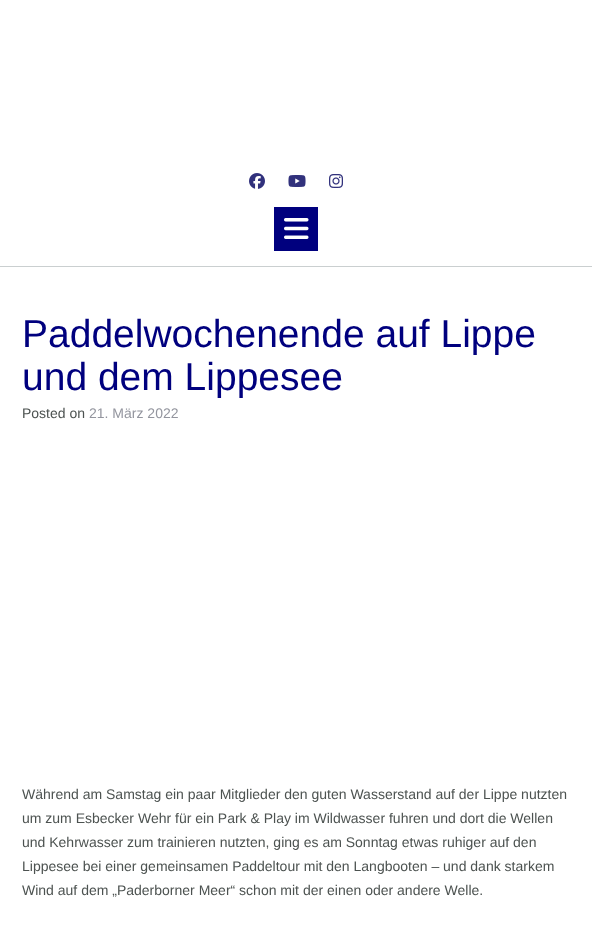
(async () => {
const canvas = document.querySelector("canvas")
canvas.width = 592
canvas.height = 927
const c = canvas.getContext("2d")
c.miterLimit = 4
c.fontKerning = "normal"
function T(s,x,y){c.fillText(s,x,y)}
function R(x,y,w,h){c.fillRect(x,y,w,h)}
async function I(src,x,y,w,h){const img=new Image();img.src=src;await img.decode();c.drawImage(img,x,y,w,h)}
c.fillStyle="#fff"
R(0,0,592,927)
c.fillStyle="#cacfd0"
R(0,266,592,1)
await I("1.png",249,173,16,16)
await I("2.png",288,175,18,12)
await I("3.png",329,174,14,14)
c.fillStyle="#00007e"
R(274,207,44,44)
await I("4.png",284,218,25,21)
c.font="39px Liberation Sans"
T("Paddelwochenende auf Lippe",22,347)
T("und dem Lippesee",22,390)
c.font="14px Liberation Sans"
c.fillStyle="#4c5250"
T("Posted on",22,418)
c.fillStyle="#93959e"
T("21. März 2022",89,418)
c.fillStyle="#4c5250"
T("Während am Samstag ein paar Mitglieder den guten Wasserstand auf der Lippe nutzten",22,799)
T("um zum Esbecker Wehr für ein Park & Play im Wildwasser fuhren und dort die Wellen",22,823)
T("und Kehrwasser zum trainieren nutzten, ging es am Sonntag etwas ruhiger auf den",22,847)
T("Lippesee bei einer gemeinsamen Paddeltour mit den Langbooten – und dank starkem",22,871)
T("Wind auf dem „Paderborner Meer“ schon mit der einen oder andere Welle.",22,895)
})()
